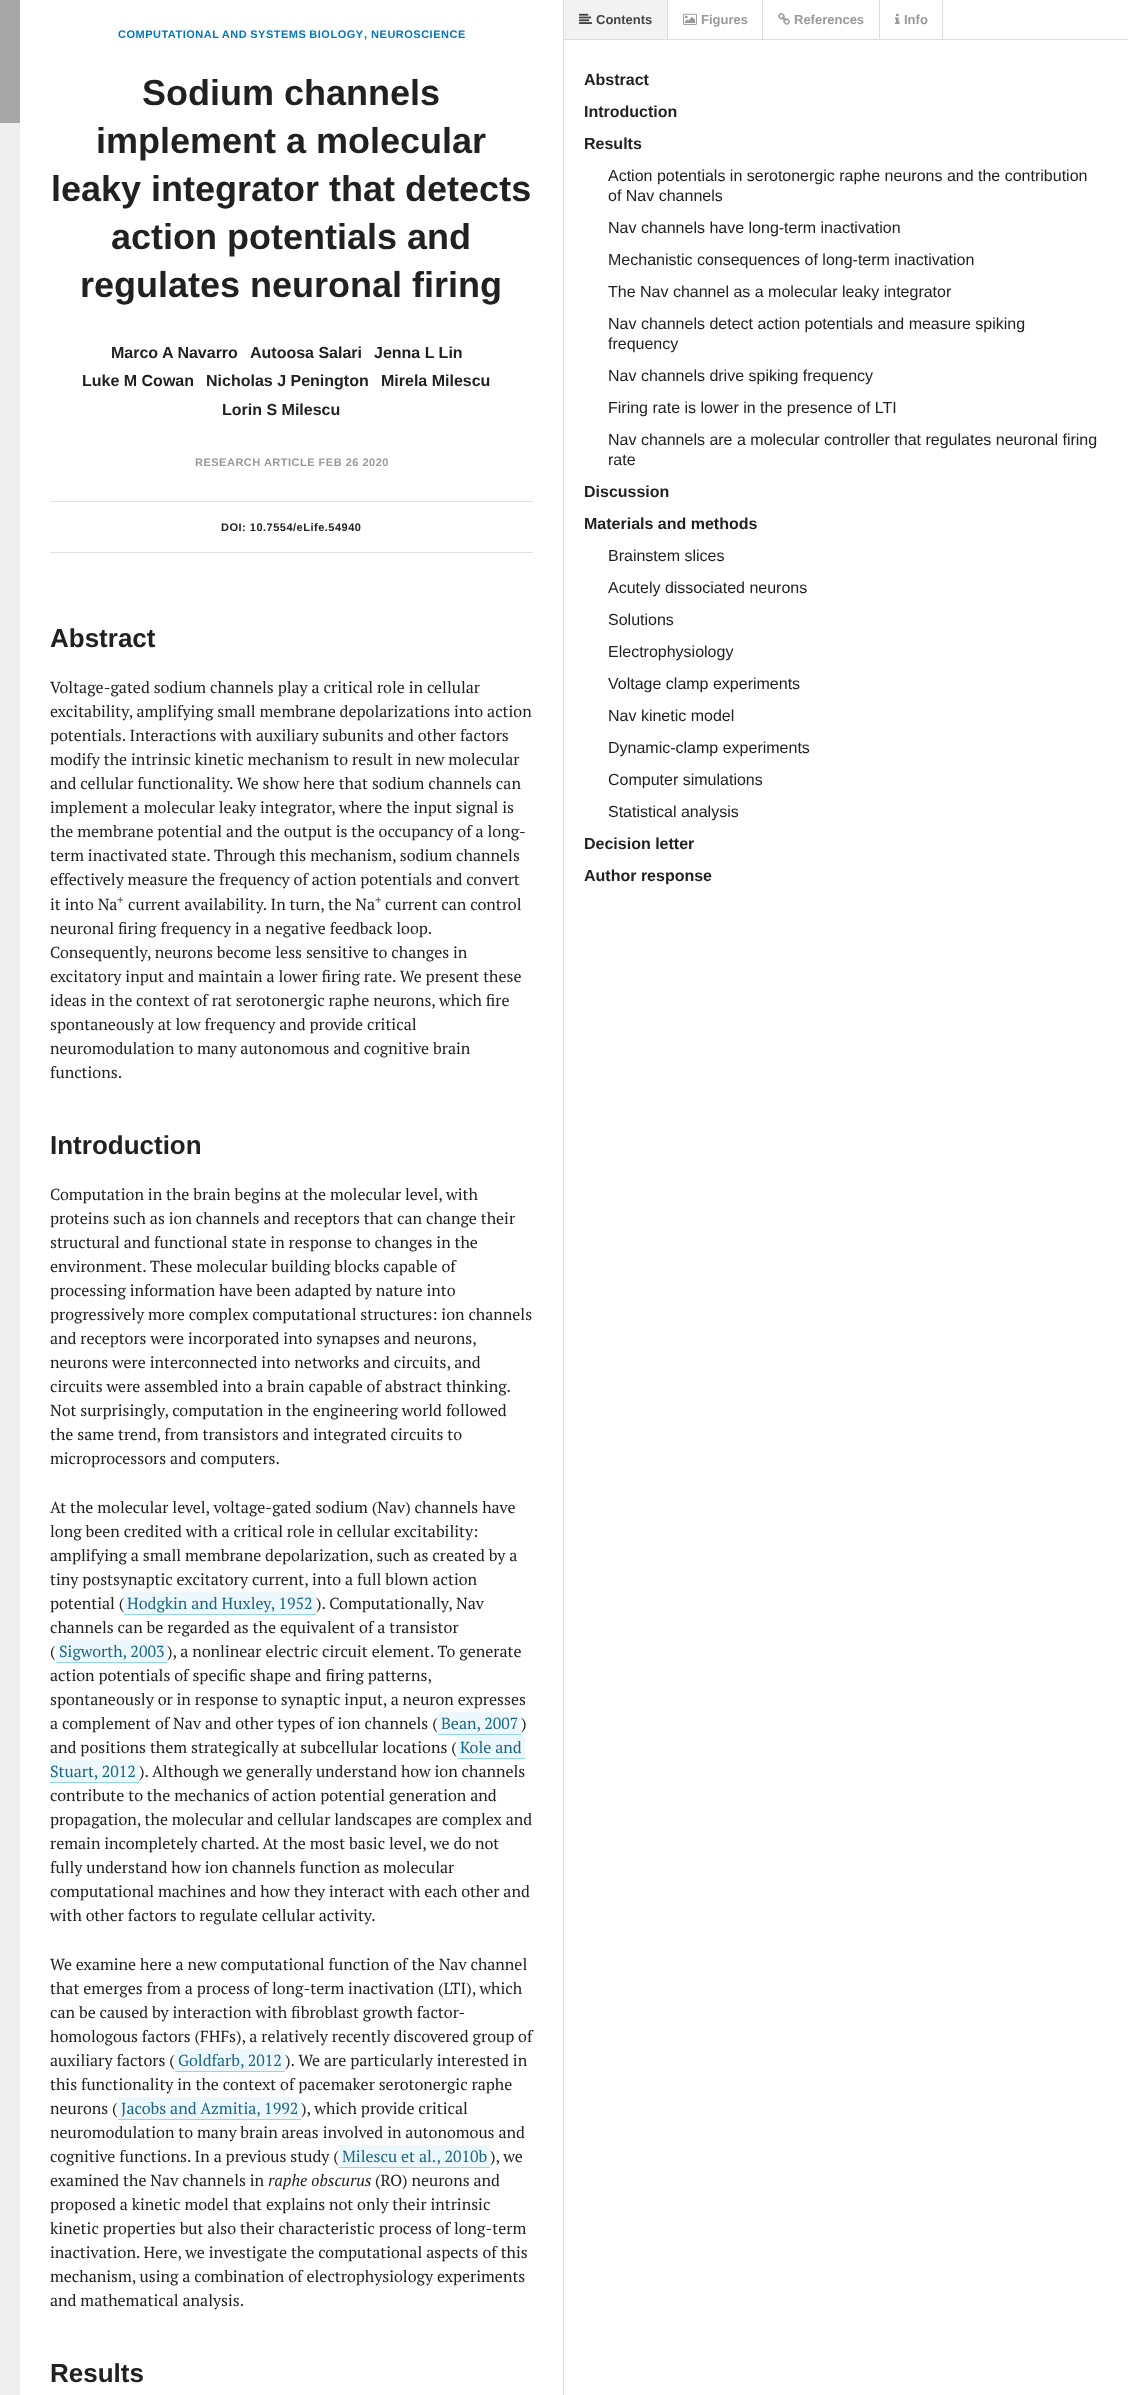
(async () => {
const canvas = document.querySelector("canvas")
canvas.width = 1128
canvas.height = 2395
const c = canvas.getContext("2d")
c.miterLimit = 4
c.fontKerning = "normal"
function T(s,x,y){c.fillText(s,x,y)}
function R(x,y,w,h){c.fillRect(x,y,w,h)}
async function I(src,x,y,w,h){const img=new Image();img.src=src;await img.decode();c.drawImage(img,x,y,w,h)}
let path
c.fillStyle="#fff"
R(0,0,1128,2395)
c.fillStyle="#ddd"
R(563,0,1,2395)
c.fillStyle="#eee"
R(0,123,20,2272)
c.fillStyle="#a7a7a7"
R(0,0,20,123)
c.letterSpacing="0.5px"
c.wordSpacing="-0.5px"
c.font="bold 11px Liberation Sans"
c.fillStyle="#0277bd"
T("COMPUTATIONAL AND SYSTEMS BIOLOGY",118,38)
c.wordSpacing="0px"
T(", NEUROSCIENCE",364,38)
c.letterSpacing="0px"
c.font="bold 36px Liberation Sans"
c.fillStyle="#212121"
T("Sodium channels",142,105)
T("implement a molecular",96,153)
T("leaky integrator that detects",51,201)
T("action potentials and",111,249)
T("regulates neuronal firing",80,297)
c.font="bold 16px Liberation Sans"
T("Marco A Navarro",111,358)
T("Autoosa Salari",250,358)
T("Jenna L Lin",374,358)
T("Luke M Cowan",82,386)
T("Nicholas J Penington",206,386)
T("Mirela Milescu",381,386)
T("Lorin S Milescu",222,415)
c.letterSpacing="0.5px"
c.font="bold 11px Liberation Sans"
c.fillStyle="#999"
T("RESEARCH ARTICLE FEB 26 2020",195,466)
c.fillStyle="#e0e0e0"
R(50,501,483,1)
R(50,552,483,1)
c.fillStyle="#212121"
T("DOI: 10.7554/eLife.54940",221,531)
c.letterSpacing="0px"
c.font="bold 26px Liberation Sans"
T("Abstract",50,647)
c.font="16px PT Serif"
T("Voltage-gated sodium channels play a critical role in cellular",50,693)
T("excitability, amplifying small membrane depolarizations into action",50,717)
T("potentials. Interactions with auxiliary subunits and other factors",50,741)
T("modify the intrinsic kinetic mechanism to result in new molecular",50,765)
T("and cellular functionality. We show here that sodium channels can",50,789)
T("implement a molecular leaky integrator, where the input signal is",50,813)
T("the membrane potential and the output is the occupancy of a long-",50,837)
T("term inactivated state. Through this mechanism, sodium channels",50,861)
T("effectively measure the frequency of action potentials and convert",50,885)
T("it into Na",50,910)
c.font="12px PT Serif"
T("+",117,904)
c.font="16px PT Serif"
T("current availability. In turn, the Na",128,910)
c.font="12px PT Serif"
T("+",375,904)
c.font="16px PT Serif"
T("current can control",385,910)
T("neuronal firing frequency in a negative feedback loop.",50,934)
T("Consequently, neurons become less sensitive to changes in",50,958)
T("excitatory input and maintain a lower firing rate. We present these",50,982)
T("ideas in the context of rat serotonergic raphe neurons, which fire",50,1006)
T("spontaneously at low frequency and provide critical",50,1030)
T("neuromodulation to many autonomous and cognitive brain",50,1054)
T("functions.",50,1078)
c.font="bold 26px Liberation Sans"
T("Introduction",50,1154)
c.font="16px PT Serif"
T("Computation in the brain begins at the molecular level, with",50,1200)
T("proteins such as ion channels and receptors that can change their",50,1224)
T("structural and functional state in response to changes in the",50,1248)
T("environment. These molecular building blocks capable of",50,1272)
T("processing information have been adapted by nature into",50,1296)
T("progressively more complex computational structures: ion channels",50,1320)
T("and receptors were incorporated into synapses and neurons,",50,1344)
T("neurons were interconnected into networks and circuits, and",50,1368)
T("circuits were assembled into a brain capable of abstract thinking.",50,1392)
T("Not surprisingly, computation in the engineering world followed",50,1416)
T("the same trend, from transistors and integrated circuits to",50,1440)
T("microprocessors and computers.",50,1464)
T("At the molecular level, voltage-gated sodium (Nav) channels have",50,1513)
T("long been credited with a critical role in cellular excitability:",50,1537)
T("amplifying a small membrane depolarization, such as created by a",50,1561)
T("tiny postsynaptic excitatory current, into a full blown action",50,1585)
T("potential (",50,1609)
c.fillStyle="#edf8fc"
R(124,1592,192,22)
c.fillStyle="#1b6685"
T("Hodgkin and Huxley, 1952",127,1609)
c.fillStyle="#93d4ee"
R(124,1614,192,1)
c.fillStyle="#212121"
T("). Computationally, Nav",316,1609)
T("channels can be regarded as the equivalent of a transistor",50,1633)
T("(",50,1657)
c.fillStyle="#edf8fc"
R(56,1640,111,22)
c.fillStyle="#1b6685"
T("Sigworth, 2003",59,1657)
c.fillStyle="#93d4ee"
R(56,1662,111,1)
c.fillStyle="#212121"
T("), a nonlinear electric circuit element. To generate",167,1657)
T("action potentials of specific shape and firing patterns,",50,1681)
T("spontaneously or in response to synaptic input, a neuron expresses",50,1705)
T("a complement of Nav and other types of ion channels (",50,1729)
c.fillStyle="#edf8fc"
R(438,1712,83,22)
c.fillStyle="#1b6685"
T("Bean, 2007",441,1729)
c.fillStyle="#93d4ee"
R(438,1734,83,1)
c.fillStyle="#212121"
T(")",521,1729)
T("and positions them strategically at subcellular locations (",50,1753)
c.fillStyle="#edf8fc"
R(457,1736,64,22)
R(521,1736,4,23)
c.fillStyle="#1b6685"
T("Kole and",460,1753)
c.fillStyle="#93d4ee"
R(457,1758,64,1)
R(521,1758,4,1)
c.fillStyle="#edf8fc"
R(50,1760,89,22)
c.fillStyle="#1b6685"
T("Stuart, 2012",50,1777)
c.fillStyle="#93d4ee"
R(50,1782,89,1)
c.fillStyle="#212121"
T("). Although we generally understand how ion channels",139,1777)
T("contribute to the mechanics of action potential generation and",50,1801)
T("propagation, the molecular and cellular landscapes are complex and",50,1825)
T("remain incompletely charted. At the most basic level, we do not",50,1849)
T("fully understand how ion channels function as molecular",50,1873)
T("computational machines and how they interact with each other and",50,1897)
T("with other factors to regulate cellular activity.",50,1921)
T("We examine here a new computational function of the Nav channel",50,1970)
T("that emerges from a process of long-term inactivation (LTI), which",50,1994)
T("can be caused by interaction with fibroblast growth factor-",50,2018)
T("homologous factors (FHFs), a relatively recently discovered group of",50,2042)
T("auxiliary factors (",50,2066)
c.fillStyle="#edf8fc"
R(175,2049,110,22)
c.fillStyle="#1b6685"
T("Goldfarb, 2012",178,2066)
c.fillStyle="#93d4ee"
R(175,2071,110,1)
c.fillStyle="#212121"
T("). We are particularly interested in",285,2066)
T("this functionality in the context of pacemaker serotonergic raphe",50,2090)
T("neurons (",50,2114)
c.fillStyle="#edf8fc"
R(118,2097,183,22)
c.fillStyle="#1b6685"
T("Jacobs and Azmitia, 1992",121,2114)
c.fillStyle="#93d4ee"
R(118,2119,183,1)
c.fillStyle="#212121"
T("), which provide critical",301,2114)
T("neuromodulation to many brain areas involved in autonomous and",50,2138)
T("cognitive functions. In a previous study (",50,2162)
c.fillStyle="#edf8fc"
R(339,2145,151,22)
c.fillStyle="#1b6685"
T("Milescu et al., 2010b",342,2162)
c.fillStyle="#93d4ee"
R(339,2167,151,1)
c.fillStyle="#212121"
T("), we",490,2162)
T("examined the Nav channels in",50,2186)
c.font="italic 16px PT Serif"
T("raphe obscurus",268,2186)
c.font="16px PT Serif"
T("(RO) neurons and",375,2186)
T("proposed a kinetic model that explains not only their intrinsic",50,2210)
T("kinetic properties but also their characteristic process of long-term",50,2234)
T("inactivation. Here, we investigate the computational aspects of this",50,2258)
T("mechanism, using a combination of electrophysiology experiments",50,2282)
T("and mathematical analysis.",50,2306)
c.font="bold 26px Liberation Sans"
T("Results",50,2382)
c.fillStyle="#ddd"
R(564,39,564,1)
c.fillStyle="#f2f2f2"
R(564,0,103,39)
c.save()
c.beginPath()
c.rect(564,0,564,39)
c.clip()
c.fillStyle="#ddd"
path = new Path2D("M668 0v43l-1-3v-40z")
c.fill(path)
c.restore()
await I("1.png",579,13,13,11)
c.font="bold 13px Liberation Sans"
c.fillStyle="#444"
T("Contents",596,24)
c.fillStyle="#ddd"
R(762,0,1,39)
await I("2.png",683,13,14,12)
c.fillStyle="#999"
T("Figures",701,24)
c.fillStyle="#ddd"
R(879,0,1,39)
await I("3.png",778,13,12,12)
c.fillStyle="#999"
T("References",794,24)
c.fillStyle="#ddd"
R(942,0,1,39)
await I("4.png",895,13,5,11)
c.fillStyle="#999"
T("Info",904,24)
c.font="bold 16px Liberation Sans"
c.fillStyle="#212121"
T("Abstract",584,85)
T("Introduction",584,117)
T("Results",584,149)
c.font="16px Liberation Sans"
T("Action potentials in serotonergic raphe neurons and the contribution",608,181)
T("of Nav channels",608,201)
T("Nav channels have long-term inactivation",608,233)
T("Mechanistic consequences of long-term inactivation",608,265)
T("The Nav channel as a molecular leaky integrator",608,297)
T("Nav channels detect action potentials and measure spiking",608,329)
T("frequency",608,349)
T("Nav channels drive spiking frequency",608,381)
T("Firing rate is lower in the presence of LTI",608,413)
T("Nav channels are a molecular controller that regulates neuronal firing",608,445)
T("rate",608,465)
c.font="bold 16px Liberation Sans"
T("Discussion",584,497)
T("Materials and methods",584,529)
c.font="16px Liberation Sans"
T("Brainstem slices",608,561)
T("Acutely dissociated neurons",608,593)
T("Solutions",608,625)
T("Electrophysiology",608,657)
T("Voltage clamp experiments",608,689)
T("Nav kinetic model",608,721)
T("Dynamic-clamp experiments",608,753)
T("Computer simulations",608,785)
T("Statistical analysis",608,817)
c.font="bold 16px Liberation Sans"
T("Decision letter",584,849)
T("Author response",584,881)
})()
